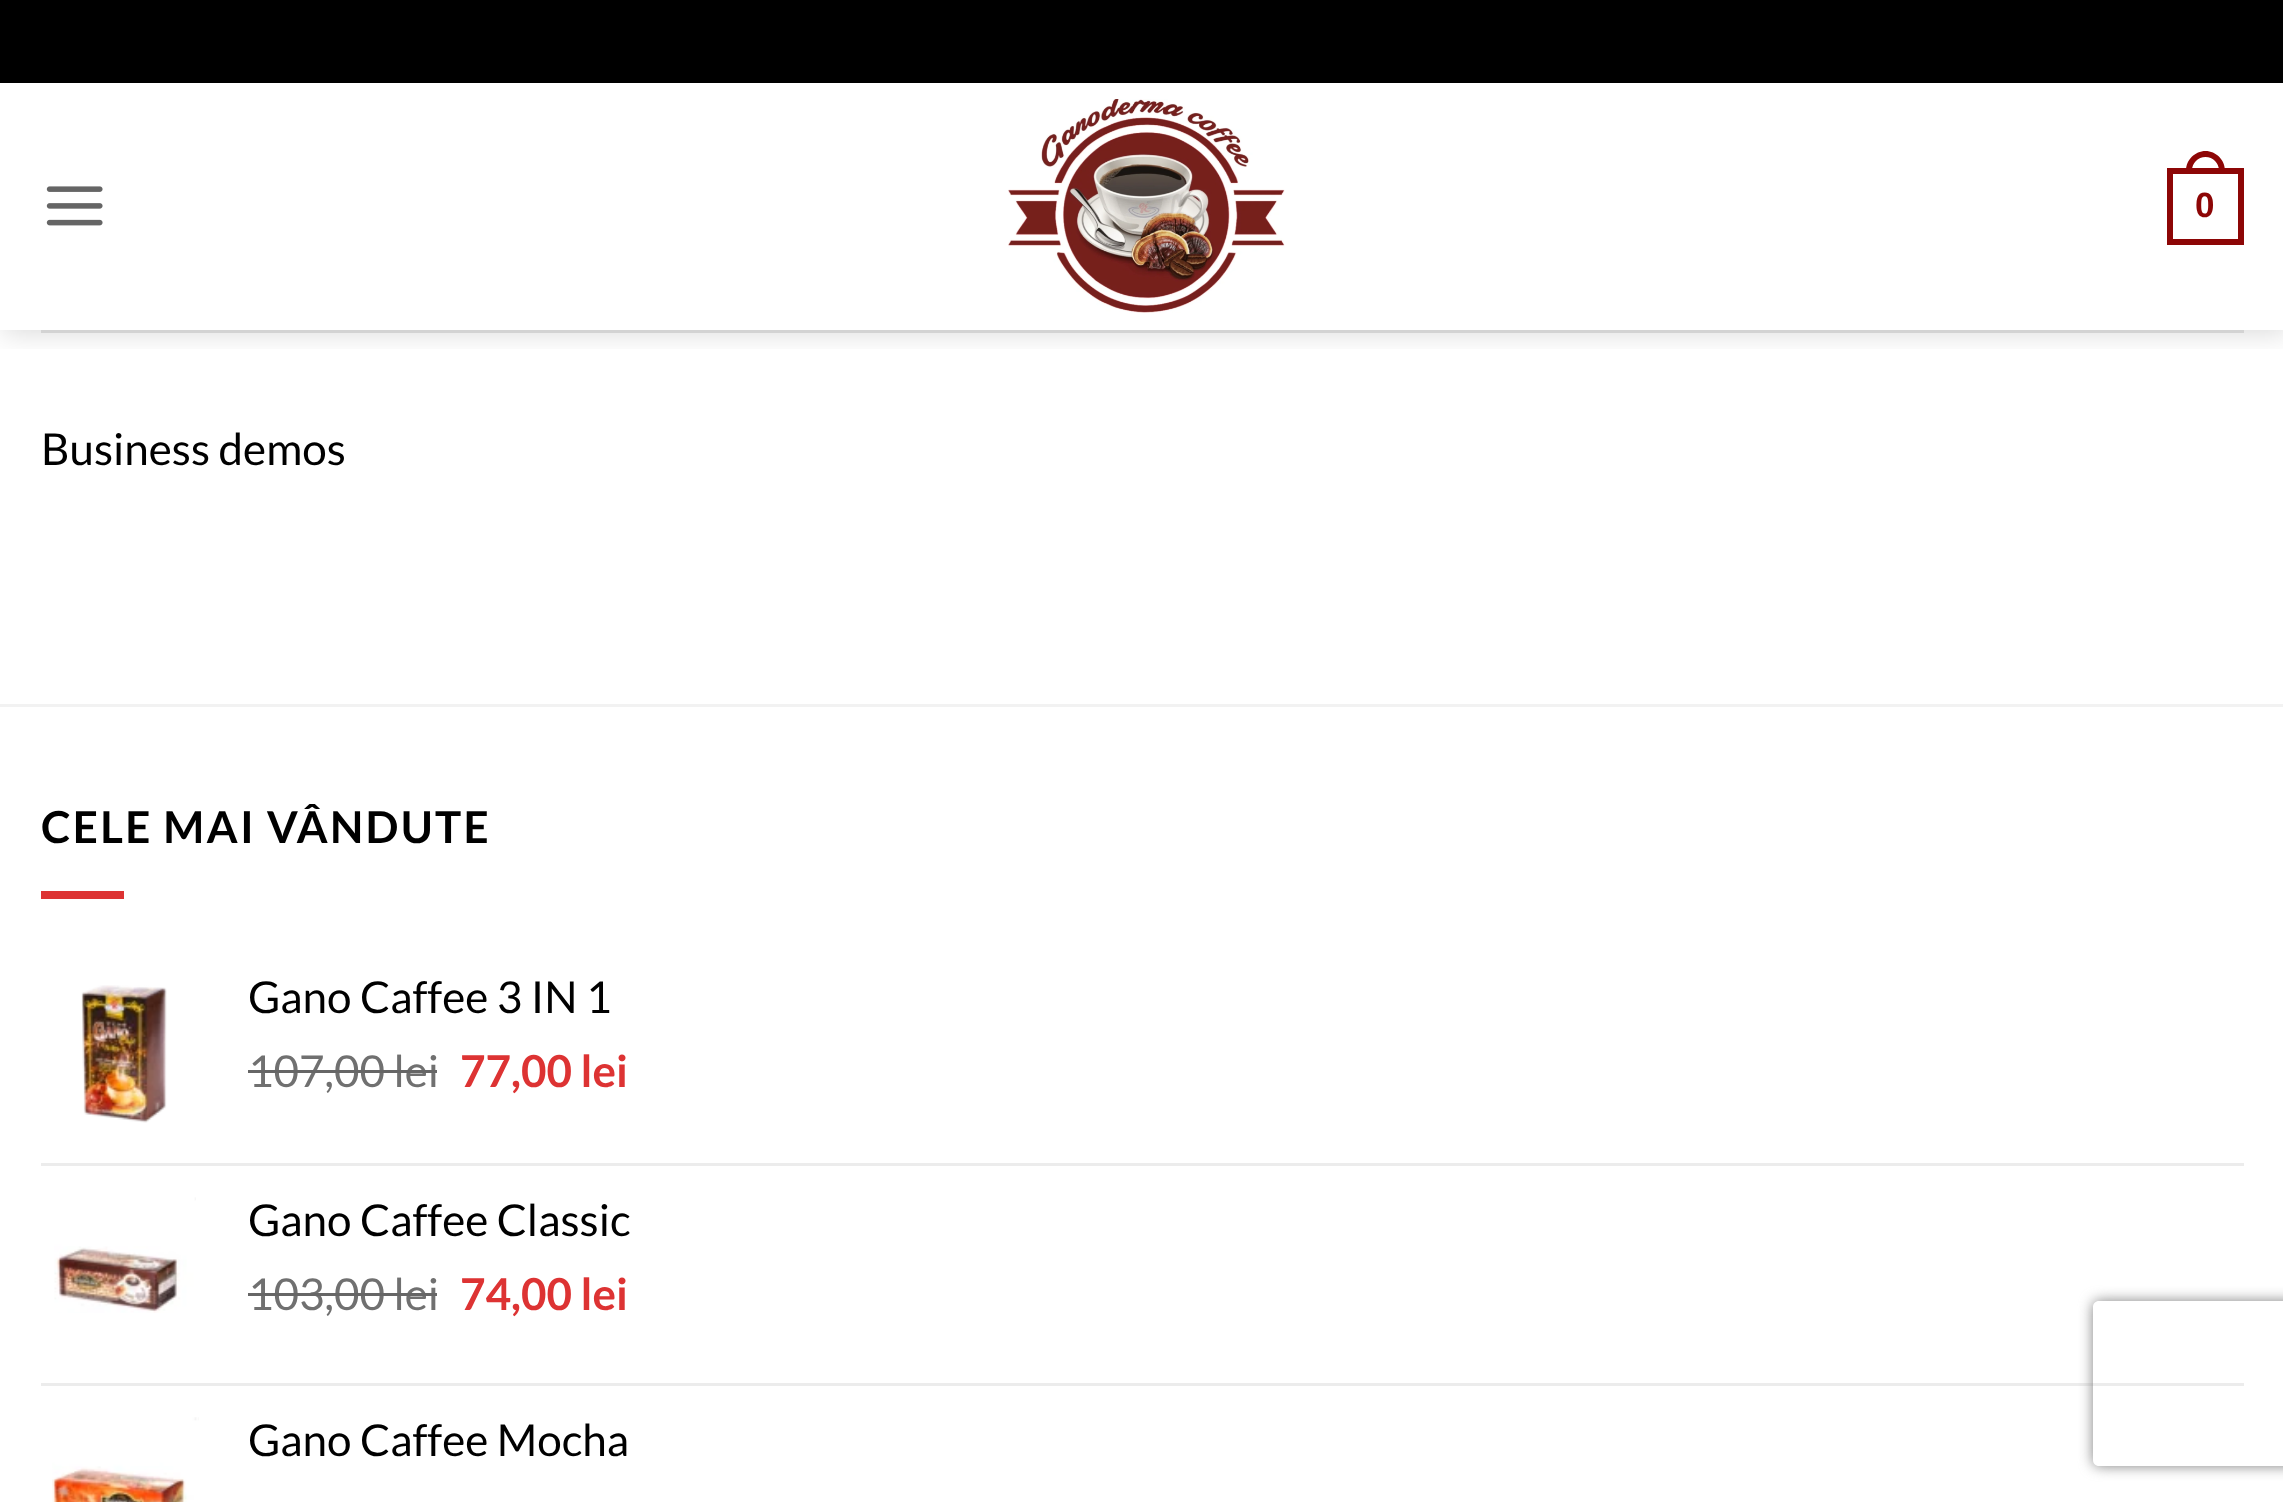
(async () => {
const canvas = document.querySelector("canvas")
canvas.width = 2283
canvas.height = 1502
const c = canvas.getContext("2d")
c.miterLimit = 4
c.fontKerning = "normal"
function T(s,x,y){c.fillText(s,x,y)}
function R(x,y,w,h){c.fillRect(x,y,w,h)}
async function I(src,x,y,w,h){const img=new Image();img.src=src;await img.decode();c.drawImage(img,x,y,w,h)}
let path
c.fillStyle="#fff"
R(0,0,2283,1502)
c.save()
c.beginPath()
c.rect(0,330,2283,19)
c.clip()
c.fillStyle="#00000026"
c.filter="blur(14px)"
c.beginPath()
c.rect(3,3,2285,330)
c.fill()
c.filter="none"
c.restore()
c.fillStyle="#000"
R(0,0,2283,83)
await I("1.png",46,186,57,40)
await I("2.png",1008,99,277,214)
c.strokeStyle="#8d0606"
c.lineWidth=6
c.strokeRect(2170,171,71,71)
c.fillStyle="#8d0606"
path = new Path2D("M2205.5 151c10.5 0 19.5 9 19.5 19.5v2.5h-39v-2.5c0-10.5 9-19.5 19.5-19.5zm0 6c7.5 0 13.5 6 13.5 13.5v2.5h-27v-2.5c0-7.5 6-13.5 13.5-13.5z")
c.fill(path,"evenodd")
c.font="bold 35px Liberation Sans"
T("0",2195,217)
c.fillStyle="#d3d3d3"
R(41,330,2203,3)
c.font="44px Lato"
c.fillStyle="#000"
T("Business demos",41,465)
c.fillStyle="#f2f2f2"
R(0,704,2283,3)
c.letterSpacing="2.25px"
c.font="bold 44px Lato"
c.fillStyle="#000"
T("CELE MAI VÂNDUTE",41,843)
c.fillStyle="#d33"
R(41,891,83,8)
await I("3.png",81,985,86,138)
c.letterSpacing="0px"
c.font="44px Lato"
c.fillStyle="#000"
T("Gano Caffee 3 IN 1",248,1013)
c.fillStyle="#707070"
T("107,00 lei",248,1087)
c.fillStyle="#666"
R(248,1070,189,3)
c.font="bold 44px Lato"
c.fillStyle="#d33"
T("77,00 lei",460,1087)
c.fillStyle="#ececec"
R(41,1163,2203,3)
await I("4.png",54,1197,142,116)
c.font="44px Lato"
c.fillStyle="#000"
T("Gano Caffee Classic",248,1236)
c.fillStyle="#707070"
T("103,00 lei",248,1310)
c.fillStyle="#666"
R(248,1293,189,3)
c.font="bold 44px Lato"
c.fillStyle="#d33"
T("74,00 lei",460,1310)
c.fillStyle="#ececec"
R(41,1383,2203,3)
await I("5.png",52,1417,147,85)
c.font="44px Lato"
c.fillStyle="#000"
T("Gano Caffee Mocha",248,1456)
c.save()
path = new Path2D("M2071 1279h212v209h-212zm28 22h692c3.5 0 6 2.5 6 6v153c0 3.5-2.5 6-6 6h-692c-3.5 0-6-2.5-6-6v-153c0-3.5 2.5-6 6-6z")
c.clip(path,"evenodd")
c.fillStyle="#808080"
c.filter="blur(7px)"
c.beginPath()
c.roundRect(2093,1301,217,165,6)
c.fill()
c.filter="none"
c.restore()
})()
